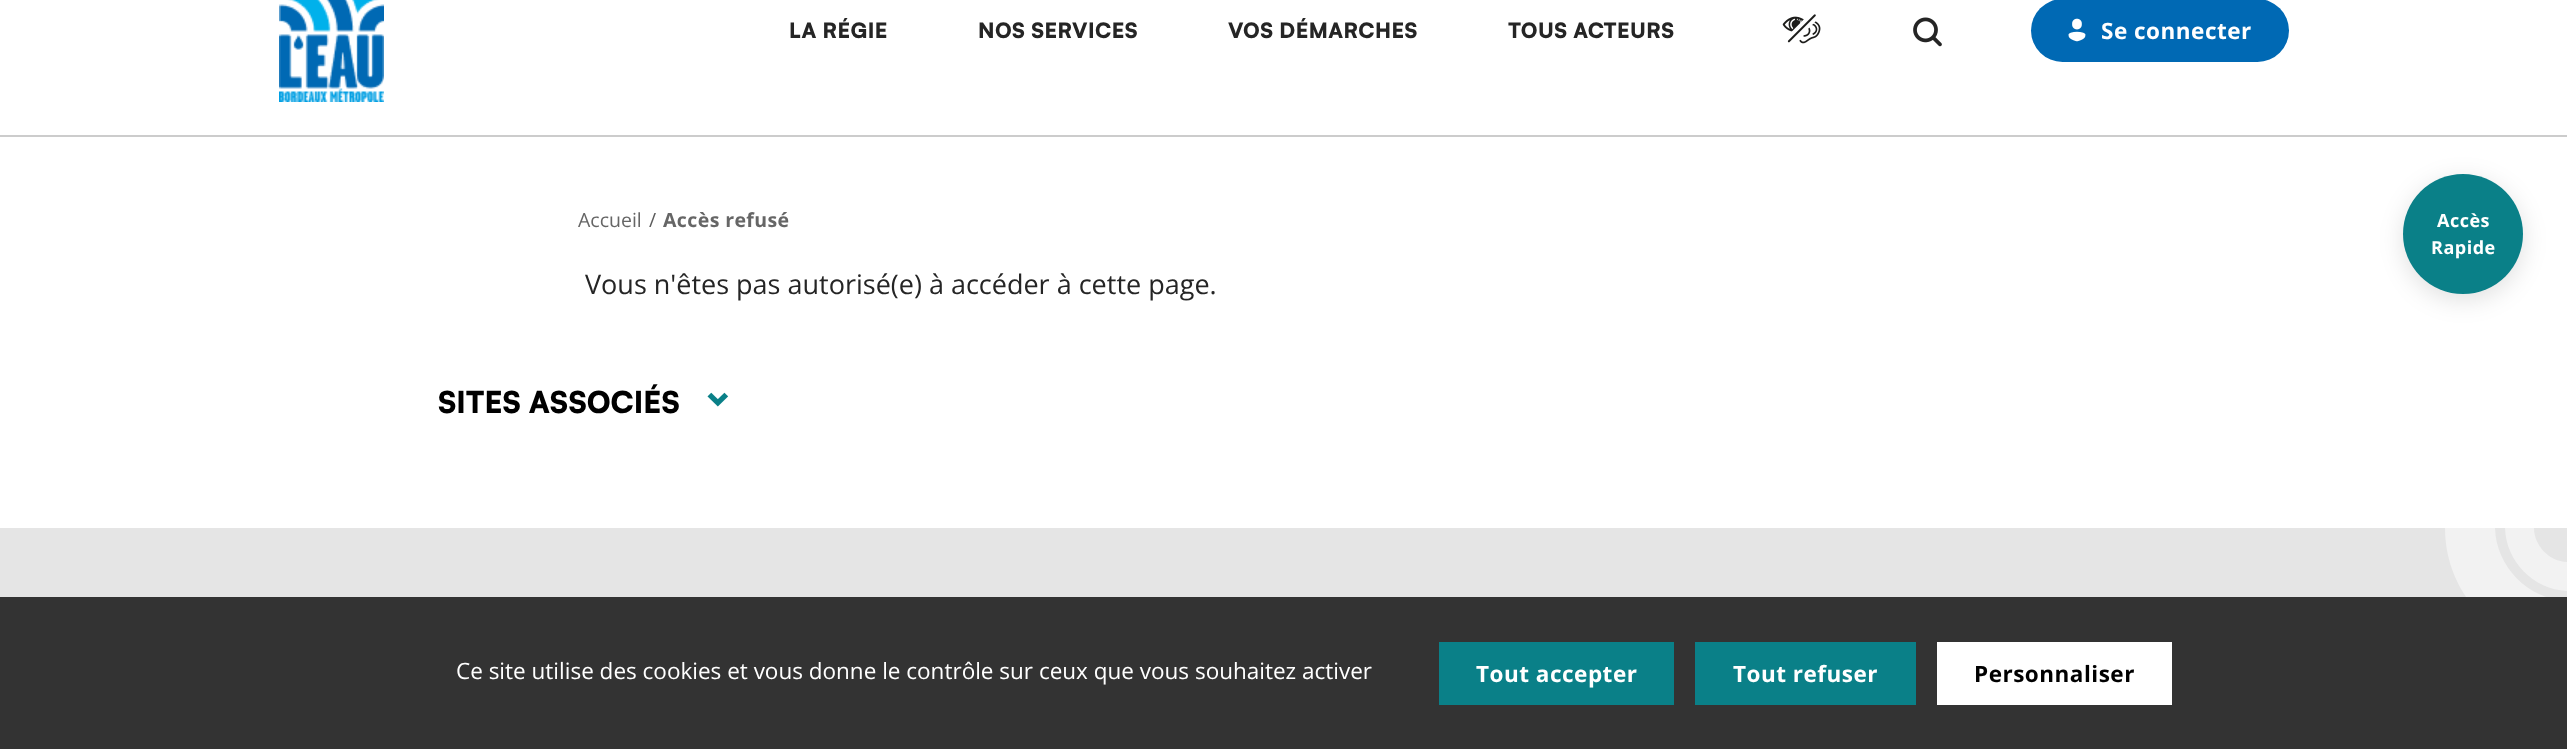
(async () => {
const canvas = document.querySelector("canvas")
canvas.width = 2567
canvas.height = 749
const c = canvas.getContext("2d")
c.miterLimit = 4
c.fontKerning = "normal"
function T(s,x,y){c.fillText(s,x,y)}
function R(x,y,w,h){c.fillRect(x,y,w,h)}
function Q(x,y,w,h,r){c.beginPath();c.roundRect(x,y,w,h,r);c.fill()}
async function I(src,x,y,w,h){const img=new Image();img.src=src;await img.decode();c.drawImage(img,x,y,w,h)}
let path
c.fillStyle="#fff"
R(0,0,2567,749)
c.fillStyle="#ccc"
R(0,135,2567,2)
await I("1.png",279,0,105,102)
c.letterSpacing="0.4px"
c.font="900 21px Satoshi"
c.fillStyle="#252525"
T("LA RÉGIE",789,38)
T("NOS SERVICES",978,38)
T("VOS DÉMARCHES",1228,38)
T("TOUS ACTEURS",1508,38)
await I("2.png",1782,14,39,30)
await I("3.png",1913,17,29,30)
c.fillStyle="#0069b4"
Q(2031,-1,258,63,31.5)
await I("4.png",2068,18,18,24)
c.letterSpacing="0.5px"
c.font="bold 22.5px Open Sans"
c.fillStyle="#fff"
T("Se connecter",2101,39)
c.letterSpacing="0px"
c.font="19.5px Open Sans"
c.fillStyle="#666"
T("Accueil",578,227)
c.fillStyle="#5c5c5c"
T("/",649,227)
c.letterSpacing="0.4px"
c.font="bold 19.5px Open Sans"
c.fillStyle="#666"
T("Accès refusé",663,227)
c.letterSpacing="0px"
c.font="27px Open Sans"
c.fillStyle="#252525"
T("Vous n'êtes pas autorisé(e) à accéder à cette page.",585,294)
c.fillStyle="#0000001f"
c.filter="blur(12px)"
c.beginPath()
c.roundRect(2403,180,120,120,60)
c.fill()
c.filter="none"
c.fillStyle="#0a8088"
c.beginPath()
c.arc(2463,234,60,0,7)
c.fill()
c.letterSpacing="0.5px"
c.font="bold 18px Open Sans"
c.fillStyle="#fff"
T("Accès",2437,227)
T("Rapide",2431,254)
c.letterSpacing="0px"
c.font="900 30px Satoshi"
c.fillStyle="#000"
T("SITES ASSOCIÉS",438,413)
await I("5.png",707,392,22,15)
c.fillStyle="#e5e5e5"
R(0,528,2567,69)
c.fillStyle="#f2f2f2"
path = new Path2D("M2495 528h-50c0 68 55 123 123 123v-50c-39-1-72-34-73-73z")
c.fill(path)
path = new Path2D("M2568 591v-29c-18 0-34-16-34-34h-29c1 34 29 62 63 63z")
c.fill(path)
c.fillStyle="#333"
R(0,597,2567,152)
c.font="22.5px Open Sans"
c.fillStyle="#fff"
T("Ce site utilise des cookies et vous donne le contrôle sur ceux que vous souhaitez activer",456,679)
c.fillStyle="#0a8088"
R(1439,642,235,63)
c.letterSpacing="0.5px"
c.font="bold 22.5px Open Sans"
c.fillStyle="#fff"
T("Tout accepter",1476,682)
c.fillStyle="#0a8088"
R(1695,642,221,63)
c.fillStyle="#fff"
T("Tout refuser",1733,682)
R(1937,642,235,63)
c.fillStyle="#000"
T("Personnaliser",1974,682)
})()
